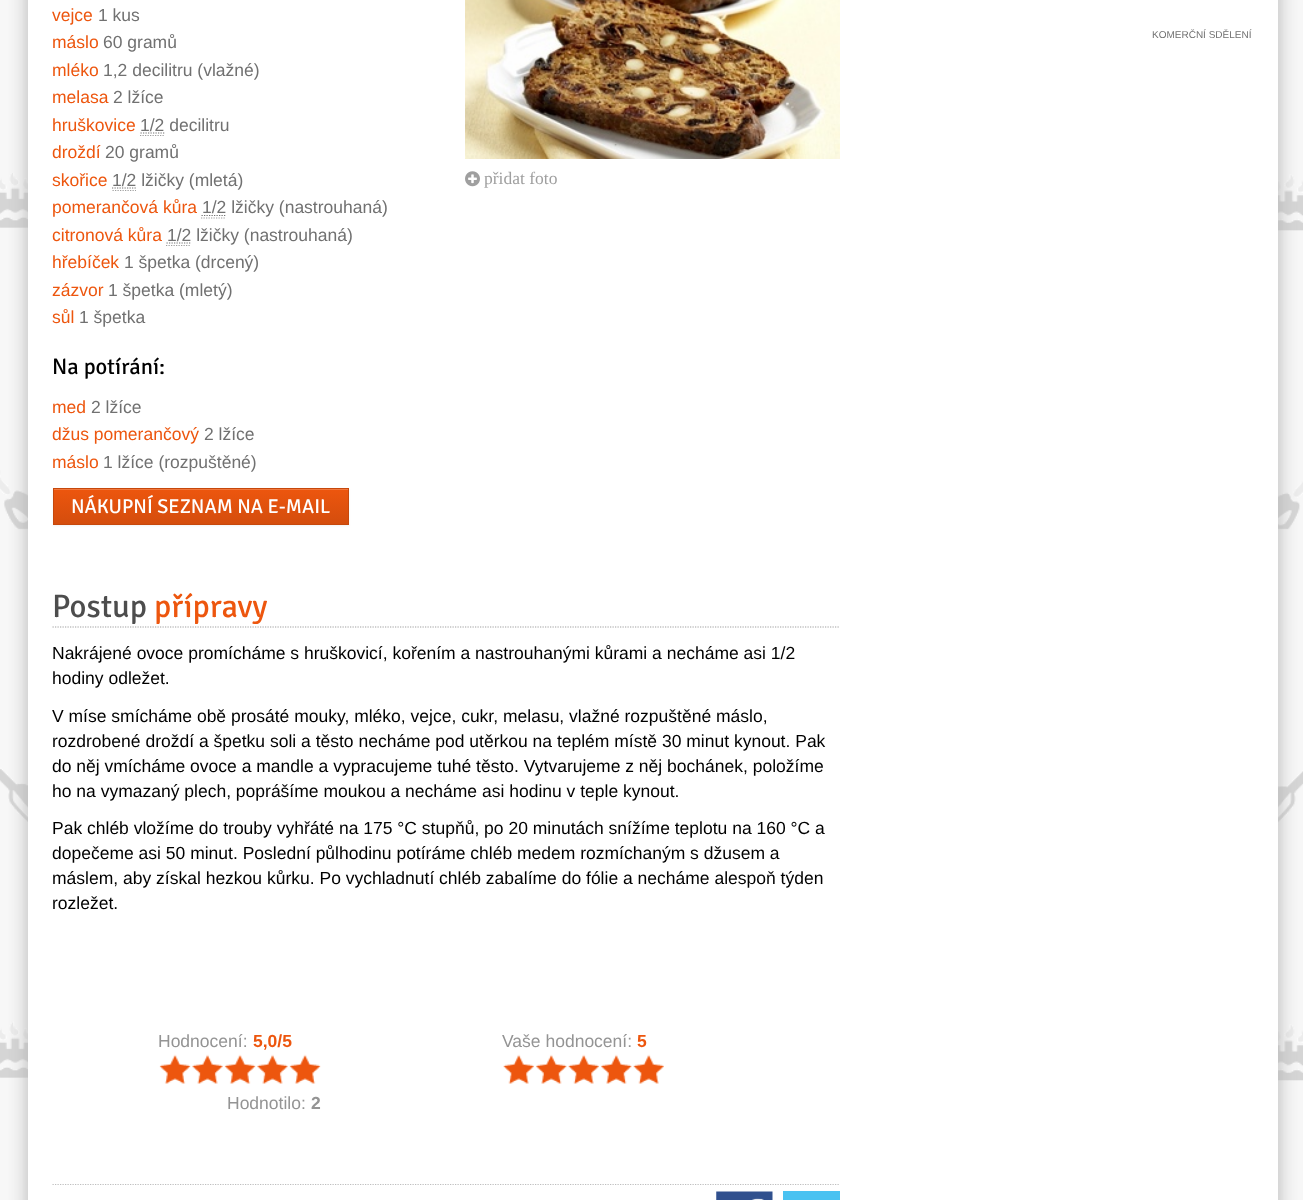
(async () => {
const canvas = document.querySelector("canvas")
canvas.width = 1303
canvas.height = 1200
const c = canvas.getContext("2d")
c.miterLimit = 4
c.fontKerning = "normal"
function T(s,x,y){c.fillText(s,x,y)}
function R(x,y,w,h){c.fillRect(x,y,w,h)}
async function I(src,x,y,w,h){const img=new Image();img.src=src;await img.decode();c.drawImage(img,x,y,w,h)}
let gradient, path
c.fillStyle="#f7f7f7"
R(0,0,1303,1200)
await I("1.png",0,173,1303,908)
c.fillStyle="#b3b3b3"
c.filter="blur(9.5px)"
c.beginPath()
c.rect(28,-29,1250,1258)
c.fill()
c.filter="none"
c.fillStyle="#fff"
R(28,0,1250,1200)
c.font="17.5px Liberation Sans"
c.fillStyle="#ed560e"
T("vejce",52,21)
c.fillStyle="#717171"
T("1 kus",98,21)
c.fillStyle="#ed560e"
T("máslo",52,48)
c.fillStyle="#717171"
T("60 gramů",103,48)
c.fillStyle="#ed560e"
T("mléko",52,76)
c.fillStyle="#717171"
T("1,2 decilitru (vlažné)",103,76)
c.fillStyle="#ed560e"
T("melasa",52,103)
c.fillStyle="#717171"
T("2 lžíce",113,103)
c.fillStyle="#ed560e"
T("hruškovice",52,131)
c.fillStyle="#717171"
T("1/2 decilitru",140,131)
path = new Path2D("M140 135.5h25")
c.strokeStyle="#9f9f9f"
c.lineWidth=1.2
c.setLineDash([1.25,1.25])
c.stroke(path)
path = new Path2D("M140.5 133h24")
c.strokeStyle="#717171"
c.stroke(path)
c.fillStyle="#ed560e"
T("droždí",52,158)
c.fillStyle="#717171"
T("20 gramů",105,158)
c.fillStyle="#ed560e"
T("skořice",52,186)
path = new Path2D("M112.5 190.5h23.5")
c.strokeStyle="#9f9f9f"
c.stroke(path)
path = new Path2D("M112 188h24.5")
c.strokeStyle="#717171"
c.stroke(path)
c.fillStyle="#717171"
T("1/2 lžičky (mletá)",112,186)
c.fillStyle="#ed560e"
T("pomerančová kůra",52,213)
path = new Path2D("M201.5 215.5h24.5")
c.stroke(path)
c.fillStyle="#717171"
T("1/2 lžičky (nastrouhaná)",202,213)
path = new Path2D("M201 218h25")
c.strokeStyle="#9f9f9f"
c.stroke(path)
c.fillStyle="#ed560e"
T("citronová kůra",52,241)
path = new Path2D("M166 245.5h25")
c.stroke(path)
path = new Path2D("M166.5 243h24.5")
c.strokeStyle="#717171"
c.stroke(path)
c.fillStyle="#717171"
T("1/2 lžičky (nastrouhaná)",167,241)
c.fillStyle="#ed560e"
T("hřebíček",52,268)
c.fillStyle="#717171"
T("1 špetka (drcený)",124,268)
c.fillStyle="#ed560e"
T("zázvor",52,296)
c.fillStyle="#717171"
T("1 špetka (mletý)",108,296)
c.fillStyle="#ed560e"
T("sůl",52,323)
c.fillStyle="#717171"
T("1 špetka",79,323)
c.font="22.5px Signika"
c.fillStyle="#000"
T("Na potírání:",52,374)
c.font="17.5px Liberation Sans"
c.fillStyle="#ed560e"
T("med",52,413)
c.fillStyle="#717171"
T("2 lžíce",91,413)
c.fillStyle="#ed560e"
T("džus pomerančový",52,440)
c.fillStyle="#717171"
T("2 lžíce",204,440)
c.fillStyle="#ed560e"
T("máslo",52,468)
c.fillStyle="#717171"
T("1 lžíce (rozpuštěné)",103,468)
c.fillStyle="#0000000d"
c.filter="blur(1px)"
c.beginPath()
c.rect(53,489,296,37)
c.fill()
c.filter="none"
gradient = c.createLinearGradient(201,489,201,524)
gradient.addColorStop(0,"#ed560e")
gradient.addColorStop(1,"#d44d0d")
c.fillStyle = gradient
R(54,490,294,34)
c.fillStyle="#f1783e"
R(54,489,294,1)
c.strokeStyle="#c6480c"
c.lineWidth=1
c.setLineDash([])
c.strokeRect(53.5,488.5,295,36)
c.font="20px Signika"
c.fillStyle="#fff"
T("NÁKUPNÍ SEZNAM NA E-MAIL",71,513)
await I("2.png",465,0,375,159)
await I("3.png",465,171,15,16)
c.font="17.5px Liberation Serif"
c.fillStyle="#9f9f9f"
T("přidat foto",484,184)
path = new Path2D("M52.5 627h787.5")
c.strokeStyle="#9f9f9f"
c.lineWidth=1.2
c.setLineDash([1.25,1.25])
c.stroke(path)
c.font="32.5px Signika"
c.fillStyle="#4d4d4d"
T("Postup",52,617)
c.fillStyle="#ed560e"
T("přípravy",154,617)
c.font="17.5px Liberation Sans"
c.fillStyle="#000"
T("Nakrájené ovoce promícháme s hruškovicí, kořením a nastrouhanými kůrami a necháme asi 1/2",52,659)
T("hodiny odležet.",52,684)
T("V míse smícháme obě prosáté mouky, mléko, vejce, cukr, melasu, vlažné rozpuštěné máslo,",52,722)
T("rozdrobené droždí a špetku soli a těsto necháme pod utěrkou na teplém místě 30 minut kynout. Pak",52,747)
T("do něj vmícháme ovoce a mandle a vypracujeme tuhé těsto. Vytvarujeme z něj bochánek, položíme",52,772)
T("ho na vymazaný plech, poprášíme moukou a necháme asi hodinu v teple kynout.",52,797)
T("Pak chléb vložíme do trouby vyhřáté na 175 °C stupňů, po 20 minutách snížíme teplotu na 160 °C a",52,834)
T("dopečeme asi 50 minut. Poslední půlhodinu potíráme chléb medem rozmíchaným s džusem a",52,859)
T("máslem, aby získal hezkou kůrku. Po vychladnutí chléb zabalíme do fólie a necháme alespoň týden",52,884)
T("rozležet.",52,909)
c.fillStyle="#949494"
T("Hodnocení:",158,1047)
c.font="bold 17.5px Liberation Sans"
c.fillStyle="#ed560e"
T("5,0/5",253,1047)
R(159,1054,162,30)
await I("4.png",159,1053,162,31)
c.font="17.5px Liberation Sans"
c.fillStyle="#949494"
T("Hodnotilo:",227,1109)
c.font="bold 17.5px Liberation Sans"
T("2",311,1109)
c.font="17.5px Liberation Sans"
T("Vaše hodnocení:",502,1047)
c.font="bold 17.5px Liberation Sans"
c.fillStyle="#ed560e"
T("5",637,1047)
R(503,1054,161,30)
await I("5.png",503,1053,162,31)
path = new Path2D("M52.5 1184.5h787.5")
c.strokeStyle="#bebebe"
c.stroke(path)
await I("6.png",716,1191,57,9)
c.fillStyle="#4ac2f1"
R(783,1191,57,9)
c.font="10px Liberation Sans"
c.fillStyle="#717171"
T("KOMERČNÍ SDĚLENÍ",1152,38)
})()
